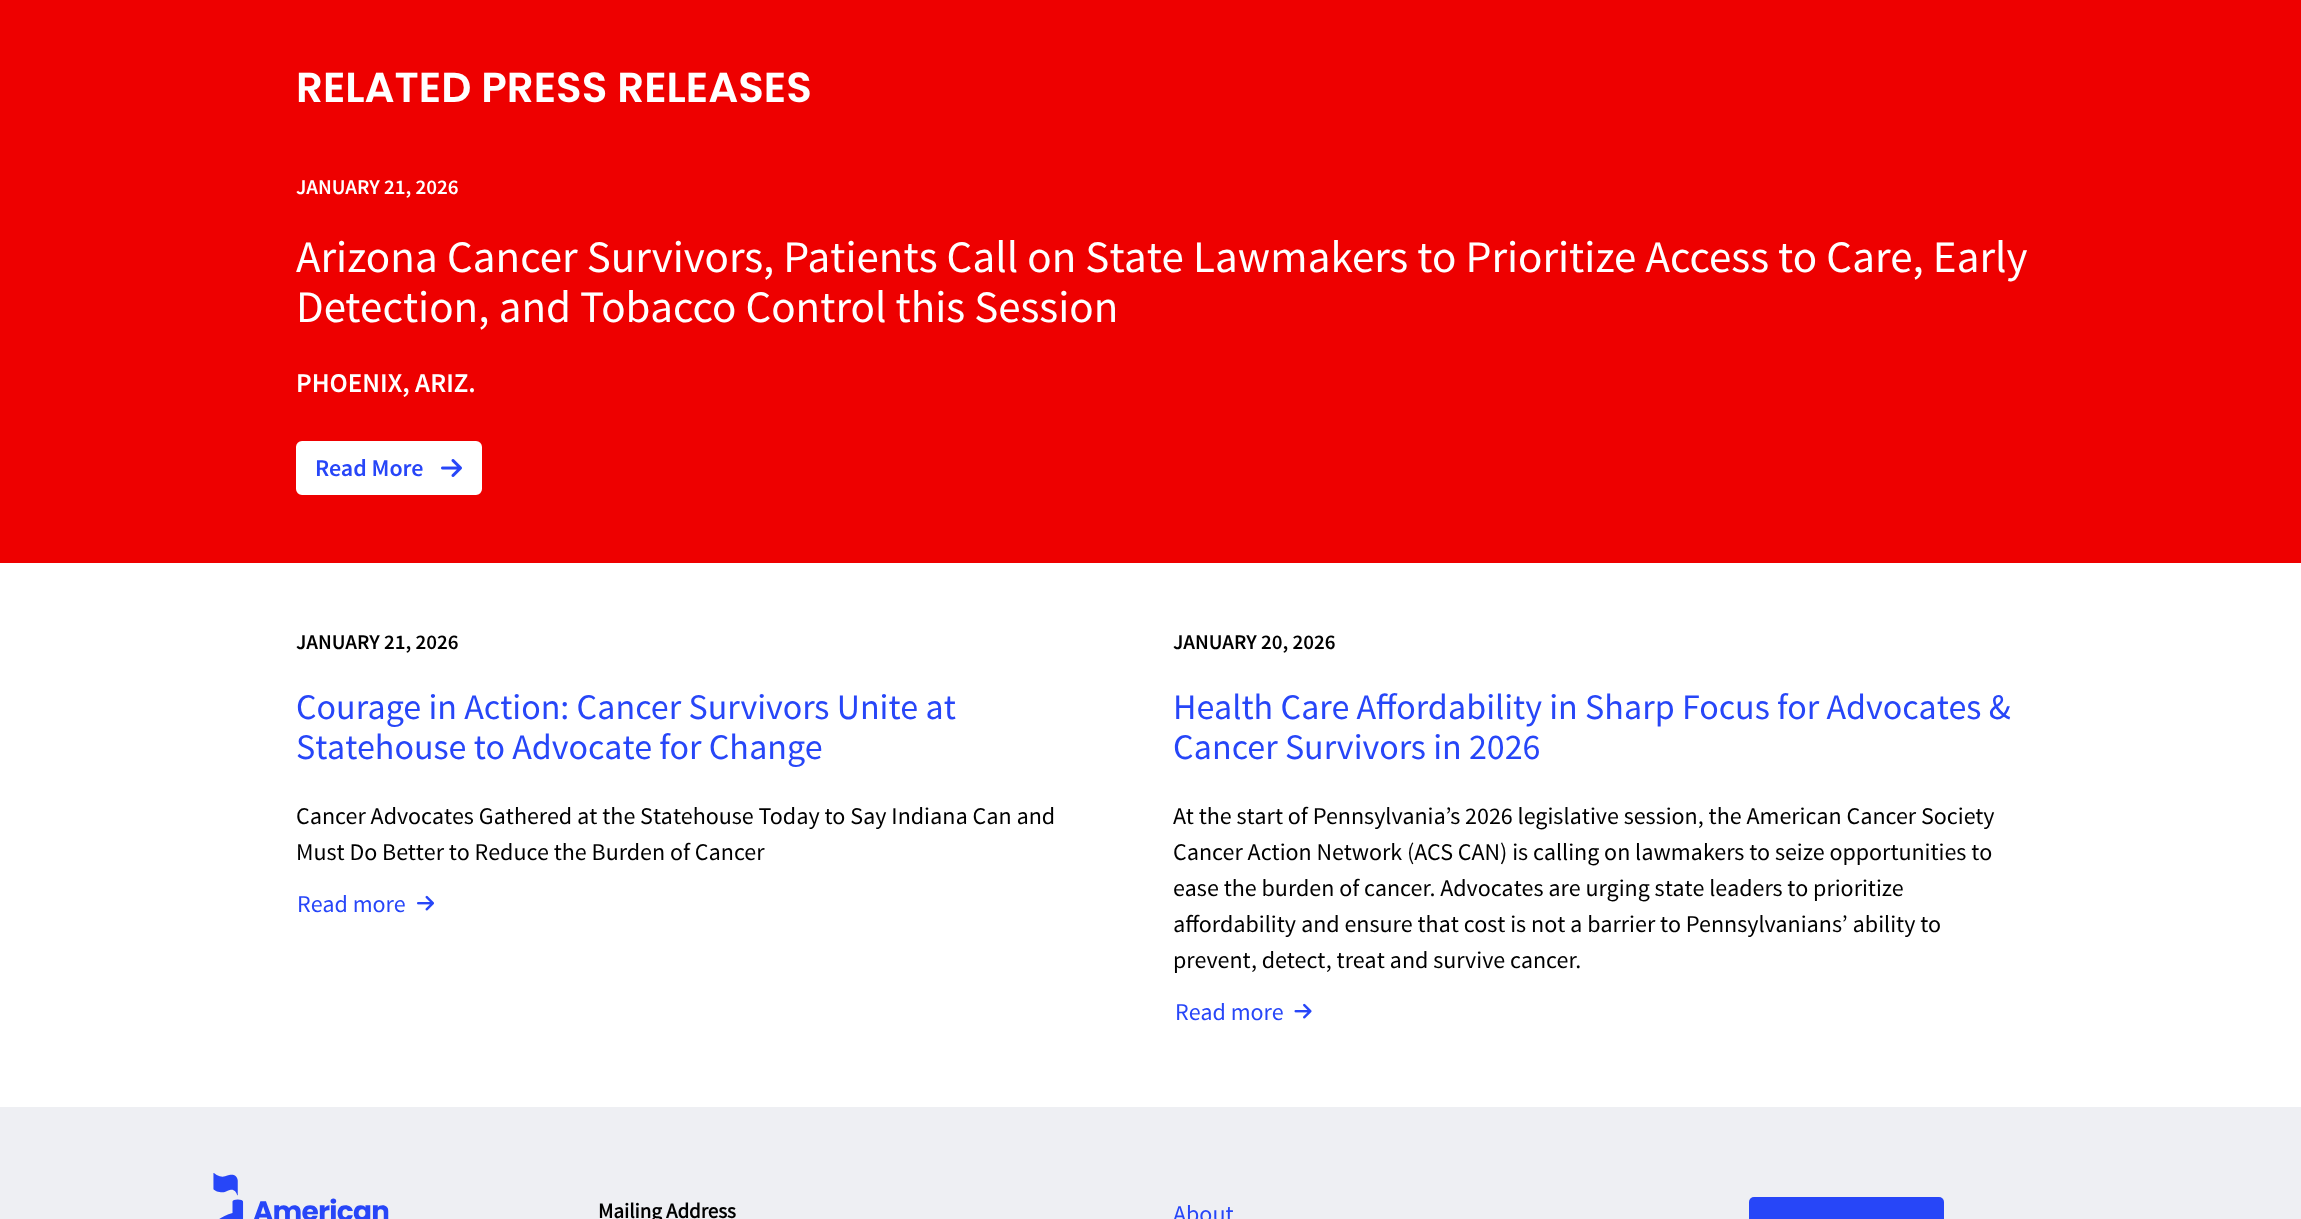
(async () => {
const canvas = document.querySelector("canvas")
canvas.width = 2301
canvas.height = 1219
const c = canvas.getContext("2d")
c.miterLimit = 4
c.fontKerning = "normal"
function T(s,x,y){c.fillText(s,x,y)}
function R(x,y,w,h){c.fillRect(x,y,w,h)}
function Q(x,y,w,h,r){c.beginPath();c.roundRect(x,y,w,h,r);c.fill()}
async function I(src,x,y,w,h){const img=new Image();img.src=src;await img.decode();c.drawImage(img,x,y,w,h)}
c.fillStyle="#fff"
R(0,0,2301,1219)
c.fillStyle="#e00"
R(0,0,2301,563)
c.font="600 42px Poppins"
c.fillStyle="#fff"
T("RELATED PRESS RELEASES",296,102)
c.font="600 21px Source Sans Pro"
T("JANUARY 21, 2026",296,194)
c.font="45px Source Sans Pro"
T("Arizona Cancer Survivors, Patients Call on State Lawmakers to Prioritize Access to Care, Early",296,272)
T("Detection, and Tobacco Control this Session",296,322)
c.font="600 27px Source Sans Pro"
T("PHOENIX, ARIZ.",296,392)
c.beginPath()
c.roundRect(297,442,184,52,5)
c.fill()
c.strokeStyle="#fff"
c.lineWidth=2
c.stroke()
c.font="600 24px Source Sans Pro"
c.fillStyle="#2746f8"
T("Read More",315,476)
await I("1.png",441,459,21,18)
c.font="600 21px Source Sans Pro"
c.fillStyle="#000"
T("JANUARY 21, 2026",296,649)
c.font="36px Source Sans Pro"
c.fillStyle="#2746f8"
T("Courage in Action: Cancer Survivors Unite at",296,719)
T("Statehouse to Advocate for Change",296,759)
c.font="24px Source Sans Pro"
c.fillStyle="#000"
T("Cancer Advocates Gathered at the Statehouse Today to Say Indiana Can and",296,824)
T("Must Do Better to Reduce the Burden of Cancer",296,860)
c.fillStyle="#2746f8"
T("Read more",297,912)
await I("2.png",417,895,17,16)
c.font="600 21px Source Sans Pro"
c.fillStyle="#000"
T("JANUARY 20, 2026",1173,649)
c.font="36px Source Sans Pro"
c.fillStyle="#2746f8"
T("Health Care Affordability in Sharp Focus for Advocates &",1173,719)
T("Cancer Survivors in 2026",1173,759)
c.font="24px Source Sans Pro"
c.fillStyle="#000"
T("At the start of Pennsylvania’s 2026 legislative session, the American Cancer Society",1173,824)
T("Cancer Action Network (ACS CAN) is calling on lawmakers to seize opportunities to",1173,860)
T("ease the burden of cancer. Advocates are urging state leaders to prioritize",1173,896)
T("affordability and ensure that cost is not a barrier to Pennsylvanians’ ability to",1173,932)
T("prevent, detect, treat and survive cancer.",1173,968)
c.fillStyle="#2746f8"
T("Read more",1175,1020)
await I("3.png",1294,1003,18,16)
c.fillStyle="#eeeff3"
R(0,1107,2301,112)
await I("4.png",213,1173,176,46)
c.font="bold 21px Source Sans Pro"
c.fillStyle="#000"
T("Mailing Address",598,1218)
c.font="24px Source Sans Pro"
c.fillStyle="#2746f8"
T("About",1173,1222)
Q(1749,1197,195,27,5)
})()
